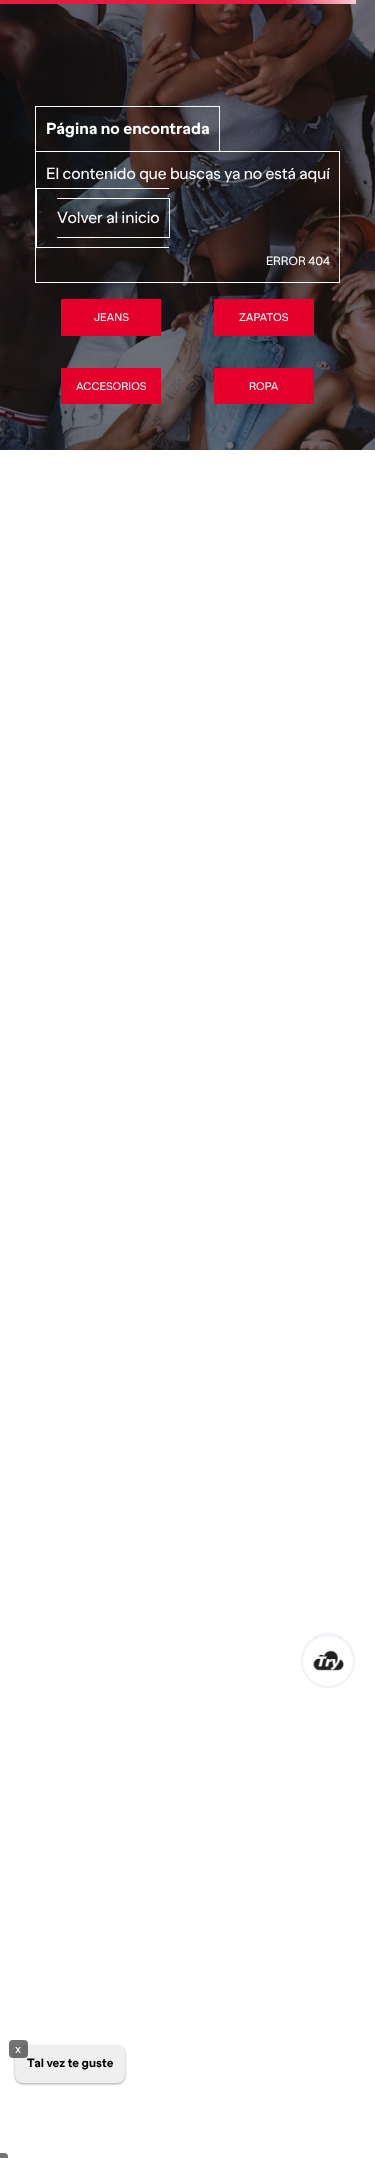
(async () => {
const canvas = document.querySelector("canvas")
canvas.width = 375
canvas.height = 2158
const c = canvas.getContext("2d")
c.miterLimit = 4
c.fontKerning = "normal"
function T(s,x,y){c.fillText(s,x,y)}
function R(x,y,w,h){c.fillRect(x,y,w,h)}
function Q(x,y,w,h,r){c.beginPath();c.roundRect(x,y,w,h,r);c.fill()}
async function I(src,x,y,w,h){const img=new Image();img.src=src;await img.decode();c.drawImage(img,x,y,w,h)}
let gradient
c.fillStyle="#fff"
R(0,0,375,2158)
await I("1.png",0,0,375,450)
gradient = c.createLinearGradient(0,2,356,2)
gradient.addColorStop(.8,"#e71a40")
gradient.addColorStop(.9,"#f28095")
gradient.addColorStop(1,"#faccd5")
c.fillStyle = gradient
R(0,0,356,4)
c.fillStyle="#fff"
R(35,106,185,1)
R(219,106,1,45)
R(35,106,1,45)
c.font="800 16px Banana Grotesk"
T("Página no encontrada",46,134)
c.strokeStyle="#fff"
c.strokeRect(35.5,151.5,304,131)
c.font="16px Banana Grotesk"
T("El contenido que buscas ya no está aquí",46,179)
T("Volver al inicio",57,223)
R(36,188,133,1)
R(36,247,133,1)
R(36,188,1,60)
R(57,198,113,1)
R(169,198,1,40)
R(57,237,113,1)
c.font="12px Banana Grotesk"
T("ERROR 404",266,265)
c.fillStyle="#e4002b"
R(61,299,100,37)
c.font="11px Banana Grotesk"
c.fillStyle="#fff"
T("JEANS",94,321)
c.fillStyle="#e4002b"
R(214,299,100,37)
c.fillStyle="#fff"
T("ZAPATOS",239,321)
c.fillStyle="#e4002b"
R(61,368,100,36)
c.fillStyle="#fff"
T("ACCESORIOS",76,390)
c.fillStyle="#e4002b"
R(214,368,100,36)
c.fillStyle="#fff"
T("ROPA",249,390)
c.fillStyle="#eff2f7"
Q(301,1633,54,55,27)
c.fillStyle="#fff"
c.beginPath()
c.arc(328,1661,25,0,7)
c.fill()
await I("2.png",313,1650,31,21)
c.fillStyle="#0000003d"
c.filter="blur(1px)"
c.beginPath()
c.roundRect(15,2046,110,38,8)
c.fill()
c.filter="none"
c.fillStyle="#0000001f"
c.filter="blur(1.5px)"
c.beginPath()
c.roundRect(15,2046,110,38,8)
c.fill()
c.filter="none"
c.fillStyle="#efefef"
Q(15,2045,110,38,8)
c.fillStyle="#0000008c"
Q(9,2040,19,18,4)
c.font="12px Banana Grotesk"
c.fillStyle="#fff"
T("x",15,2053)
c.font="800 12px Banana Grotesk"
c.fillStyle="#000"
T("Tal vez te guste",27,2067)
c.fillStyle="#0000008c"
Q(-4,2153,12,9,4)
})()
